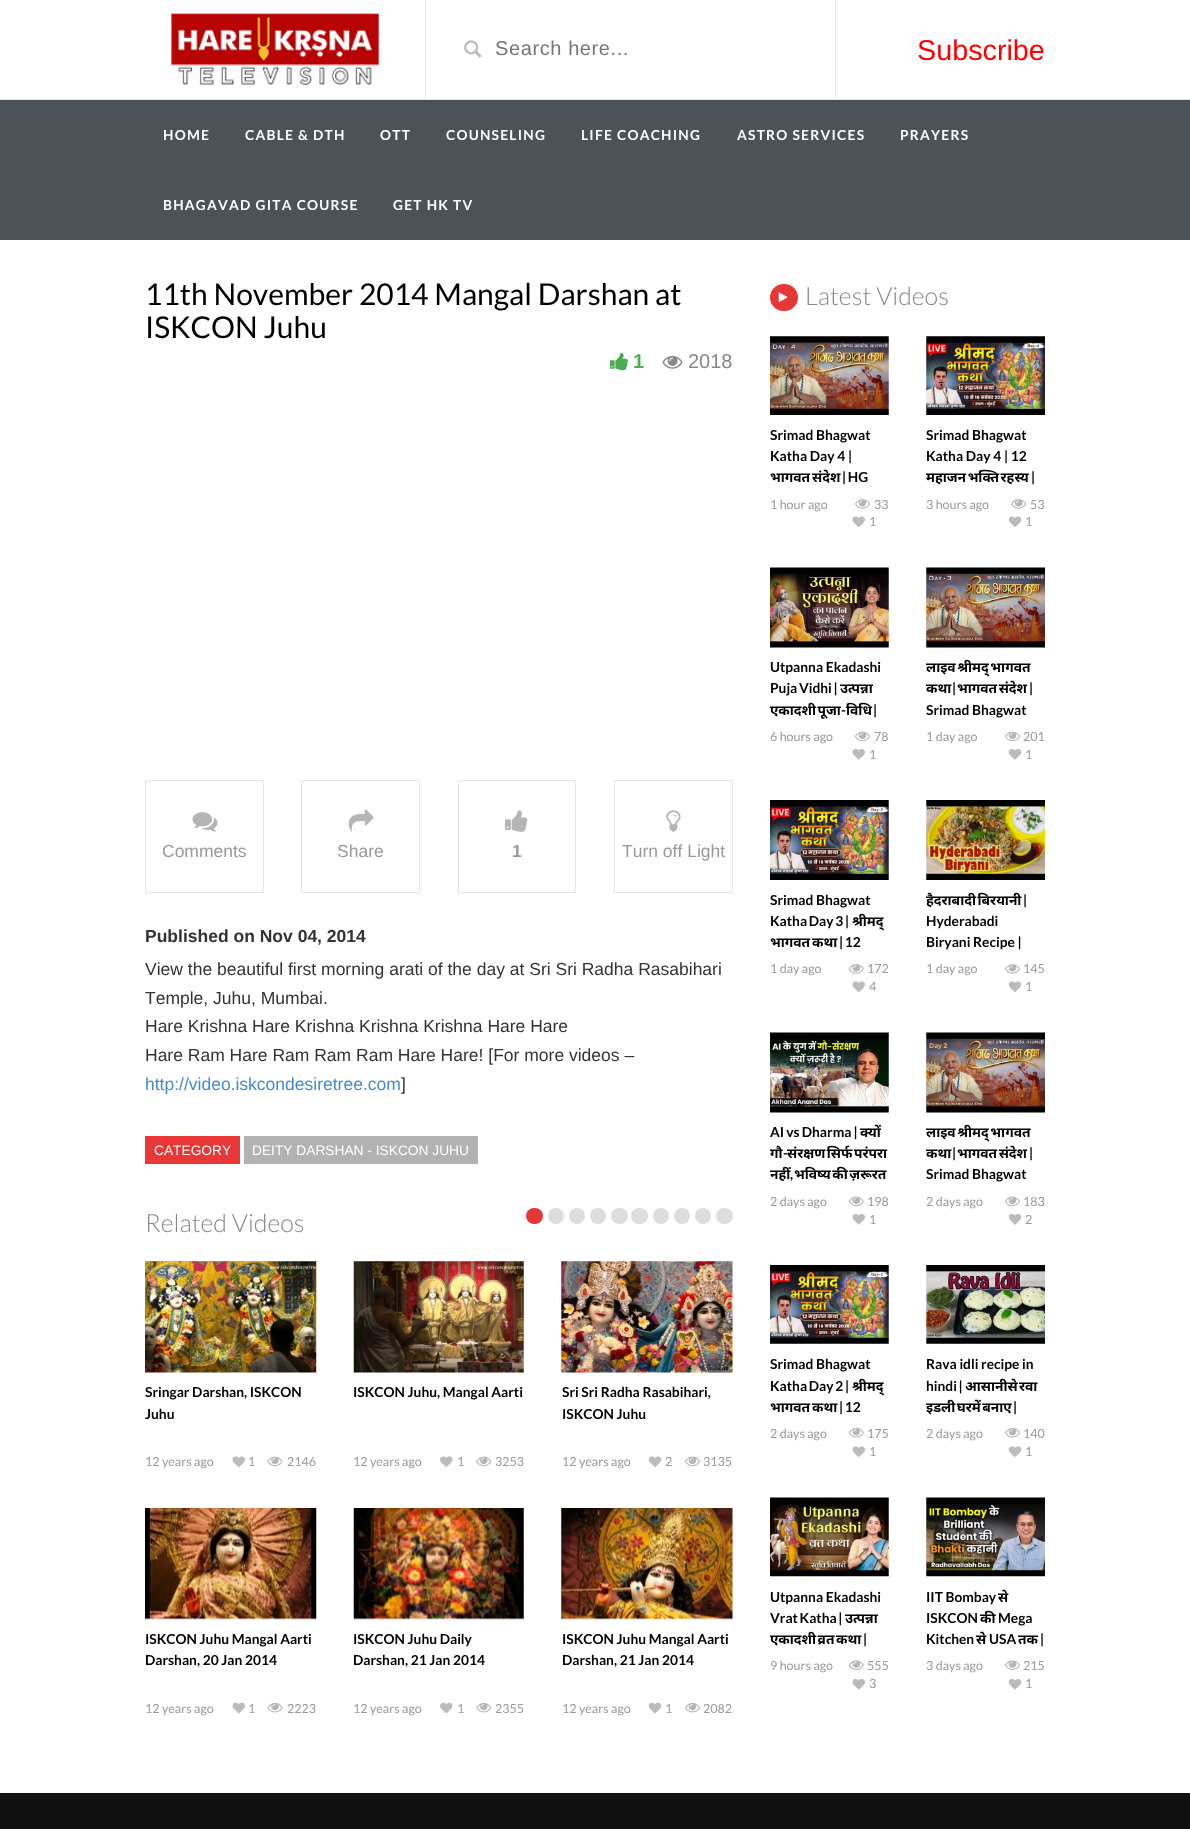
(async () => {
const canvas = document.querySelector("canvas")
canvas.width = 1190
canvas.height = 1829
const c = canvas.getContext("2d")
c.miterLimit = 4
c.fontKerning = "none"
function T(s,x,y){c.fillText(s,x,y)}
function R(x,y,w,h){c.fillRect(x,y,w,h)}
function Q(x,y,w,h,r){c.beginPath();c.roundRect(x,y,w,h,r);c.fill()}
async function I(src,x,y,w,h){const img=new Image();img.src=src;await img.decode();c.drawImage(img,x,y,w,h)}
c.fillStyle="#fff"
R(0,0,1190,1829)
c.fillStyle="#e5e5e5"
R(0,99,1190,1)
R(425,0,1,99)
await I("1.png",171,13,208,72)
await I("2.png",464,40,18,18)
c.letterSpacing="0.6px"
c.font="20px Liberation Sans"
c.fillStyle="#757575"
T("Search here...",495,55)
c.fillStyle="#e5e5e5"
R(835,0,1,99)
c.letterSpacing="0px"
c.font="28.75px Liberation Sans"
c.fillStyle="#f00"
T("Subscribe",917,60)
c.fillStyle="#4c5358"
R(0,100,1190,140)
c.letterSpacing="1.25px"
c.font="bold 13.75px Lato"
c.fillStyle="#fff"
T("HOME",163,140)
T("CABLE & DTH",245,140)
T("OTT",380,140)
T("COUNSELING",446,140)
T("LIFE COACHING",581,140)
T("ASTRO SERVICES",737,140)
T("PRAYERS",900,140)
T("BHAGAVAD GITA COURSE",163,210)
T("GET HK TV",393,210)
c.letterSpacing="0px"
c.font="30px Lato"
c.fillStyle="#000"
T("11th November 2014 Mangal Darshan at",145,305)
T("ISKCON Juhu",145,338)
await I("3.png",610,353,18,18)
c.font="bold 20px Liberation Sans"
c.fillStyle="#4aad51"
T("1",633,368)
await I("4.png",662,355,21,14)
c.font="20px Liberation Sans"
c.fillStyle="#888"
T("2018",688,368)
c.strokeStyle="#e5e5e5"
c.strokeRect(145.5,780.5,118,112)
await I("5.png",192,812,26,20)
c.font="17.5px Liberation Sans"
c.fillStyle="#999"
T("Comments",162,857)
c.strokeRect(301.5,780.5,118,112)
await I("6.png",348,809,26,23)
T("Share",337,857)
c.strokeRect(458.5,780.5,117,112)
await I("7.png",505,810,23,22)
c.font="bold 17.5px Liberation Sans"
T("1",512,857)
c.strokeRect(614.5,780.5,118,112)
await I("8.png",666,810,15,22)
c.font="17.5px Liberation Sans"
T("Turn off Light",622,857)
c.font="bold 17.5px Liberation Sans"
c.fillStyle="#333"
T("Published on Nov 04, 2014",145,942)
c.font="17.5px Liberation Sans"
T("View the beautiful first morning arati of the day at Sri Sri Radha Rasabihari",145,975)
T("Temple, Juhu, Mumbai.",145,1004)
T("Hare Krishna Hare Krishna Krishna Krishna Hare Hare",145,1032)
T("Hare Ram Hare Ram Ram Ram Hare Hare! [For more videos –",145,1061)
c.fillStyle="#428bca"
T("http://video.iskcondesiretree.com",145,1090)
c.fillStyle="#333"
T("]",401,1090)
c.fillStyle="#e73737"
R(145,1136,95,28)
c.font="13.75px Liberation Sans"
c.fillStyle="#fff"
T("CATEGORY",154,1155)
c.fillStyle="#b2b2b2"
R(244,1136,234,28)
c.fillStyle="#fff"
T("DEITY DARSHAN - ISKCON JUHU",252,1155)
c.font="300 25px Lato"
c.fillStyle="#888"
T("Related Videos",145,1232)
c.fillStyle="#e73737"
Q(526,1208,17,16,8)
c.fillStyle="#ddd"
c.beginPath()
c.arc(556,1216,8,0,7)
c.fill()
c.beginPath()
c.arc(577,1216,8,0,7)
c.fill()
c.beginPath()
c.arc(598,1216,8,0,7)
c.fill()
Q(611,1208,17,16,8)
Q(631,1208,17,16,8)
c.beginPath()
c.arc(661,1216,8,0,7)
c.fill()
c.beginPath()
c.arc(682,1216,8,0,7)
c.fill()
c.beginPath()
c.arc(703,1216,8,0,7)
c.fill()
Q(716,1208,17,16,8)
await I("9.png",145,1261,172,112)
c.font="bold 13.75px Lato"
c.fillStyle="#000"
T("Sringar Darshan, ISKCON",145,1397)
T("Juhu",145,1419)
c.font="12.5px Lato"
c.fillStyle="#999"
T("12 years ago",145,1466)
await I("10.png",232,1456,13,11)
T("1",248,1466)
await I("11.png",267,1456,16,11)
T("2146",287,1466)
await I("12.png",353,1261,171,112)
c.font="bold 13.75px Lato"
c.fillStyle="#000"
T("ISKCON Juhu, Mangal Aarti",353,1397)
c.font="12.5px Lato"
c.fillStyle="#999"
T("12 years ago",353,1466)
await I("13.png",440,1456,13,11)
T("1",457,1466)
await I("14.png",476,1456,16,11)
T("3253",495,1466)
await I("15.png",561,1261,172,112)
c.font="bold 13.75px Lato"
c.fillStyle="#000"
T("Sri Sri Radha Rasabihari,",562,1397)
T("ISKCON Juhu",562,1419)
c.font="12.5px Lato"
c.fillStyle="#999"
T("12 years ago",562,1466)
await I("16.png",648,1456,14,11)
T("2",665,1466)
await I("17.png",685,1456,15,11)
T("3135",703,1466)
await I("18.png",145,1508,172,112)
c.font="bold 13.75px Lato"
c.fillStyle="#000"
T("ISKCON Juhu Mangal Aarti",145,1644)
T("Darshan, 20 Jan 2014",145,1665)
c.font="12.5px Lato"
c.fillStyle="#999"
T("12 years ago",145,1713)
await I("19.png",232,1702,13,12)
T("1",248,1713)
await I("20.png",267,1702,16,11)
T("2223",287,1713)
await I("21.png",353,1508,171,112)
c.font="bold 13.75px Lato"
c.fillStyle="#000"
T("ISKCON Juhu Daily",353,1644)
T("Darshan, 21 Jan 2014",353,1665)
c.font="12.5px Lato"
c.fillStyle="#999"
T("12 years ago",353,1713)
await I("22.png",440,1702,13,12)
T("1",457,1713)
await I("23.png",476,1702,16,11)
T("2355",495,1713)
await I("24.png",561,1508,172,112)
c.font="bold 13.75px Lato"
c.fillStyle="#000"
T("ISKCON Juhu Mangal Aarti",562,1644)
T("Darshan, 21 Jan 2014",562,1665)
c.font="12.5px Lato"
c.fillStyle="#999"
T("12 years ago",562,1713)
await I("25.png",648,1702,14,12)
T("1",665,1713)
await I("26.png",685,1702,15,11)
T("2082",703,1713)
c.fillStyle="#e73737"
Q(770,284,28,27,13.5)
await I("27.png",778,292,10,10)
c.font="300 25px Lato"
c.fillStyle="#888"
T("Latest Videos",805,305)
await I("28.png",770,336,119,79)
c.font="bold 13.75px Lato"
c.fillStyle="#000"
T("Srimad Bhagwat",770,440)
T("Katha Day 4 |",770,461)
c.font="bold 13.75px Noto Sans"
T("भागवत",770,482)
T("संदेश",812,482)
c.wordSpacing="-1px"
c.font="bold 13.75px Lato"
T("| HG",842,482)
c.wordSpacing="0px"
c.font="12.5px Lato"
c.fillStyle="#999"
T("1 hour ago",770,509)
await I("29.png",855,499,15,10)
T("33",874,509)
await I("10.png",852,516,13,11)
T("1",869,526)
await I("30.png",926,336,119,79)
c.font="bold 13.75px Lato"
c.fillStyle="#000"
T("Srimad Bhagwat",926,440)
T("Katha Day 4 | 12",926,461)
c.wordSpacing="-2px"
c.font="bold 13.75px Noto Sans"
T("महाजन भक्ति रहस्य",926,482)
c.wordSpacing="0px"
c.font="bold 13.75px Lato"
T("|",1031,482)
c.font="12.5px Lato"
c.fillStyle="#999"
T("3 hours ago",926,509)
await I("31.png",1011,499,16,10)
T("53",1030,509)
await I("16.png",1008,516,14,11)
T("1",1025,526)
await I("32.png",770,567,119,81)
c.font="bold 13.75px Lato"
c.fillStyle="#000"
T("Utpanna Ekadashi",770,672)
c.wordSpacing="-1px"
T("Puja Vidhi |",770,693)
c.wordSpacing="0px"
c.font="bold 13.75px Noto Sans"
T("उत्पन्ना",840,693)
c.wordSpacing="-2px"
T("एकादशी पूजा",770,715)
c.wordSpacing="0px"
c.font="bold 13.75px Lato"
T("-",841,715)
c.font="bold 13.75px Noto Sans"
T("विधि",846,715)
c.font="bold 13.75px Lato"
T("|",873,715)
c.font="12.5px Lato"
c.fillStyle="#999"
T("6 hours ago",770,741)
await I("17.png",855,731,15,11)
T("78",874,741)
await I("33.png",852,749,13,11)
T("1",869,759)
await I("34.png",926,567,119,81)
c.wordSpacing="-2px"
c.font="bold 13.75px Noto Sans"
c.fillStyle="#000"
T("लाइव श्रीमद् भागवत",926,672)
c.wordSpacing="0px"
T("कथा",926,693)
c.font="bold 13.75px Lato"
T("|",952,693)
c.wordSpacing="-2px"
c.font="bold 13.75px Noto Sans"
T("भागवत संदेश",957,693)
c.wordSpacing="0px"
c.font="bold 13.75px Lato"
T("|",1029,693)
T("Srimad Bhagwat",926,715)
c.font="12.5px Lato"
c.fillStyle="#999"
T("1 day ago",926,741)
await I("17.png",1005,731,15,11)
T("201",1023,741)
await I("35.png",1008,749,14,11)
T("1",1025,759)
await I("36.png",770,800,119,80)
c.font="bold 13.75px Lato"
c.fillStyle="#000"
T("Srimad Bhagwat",770,905)
c.wordSpacing="-1px"
T("Katha Day 3 |",770,926)
c.wordSpacing="0px"
c.font="bold 13.75px Noto Sans"
T("श्रीमद्",852,926)
T("भागवत",770,947)
T("कथा",812,947)
c.wordSpacing="-1px"
c.font="bold 13.75px Lato"
T("| 12",839,947)
c.wordSpacing="0px"
c.font="12.5px Lato"
c.fillStyle="#999"
T("1 day ago",770,973)
await I("37.png",848,964,16,10)
T("172",867,973)
await I("10.png",852,981,13,11)
T("4",869,991)
await I("38.png",926,800,119,80)
c.save()
c.beginPath()
c.rect(926,886,119,69)
c.clip()
c.wordSpacing="-2px"
c.font="bold 13.75px Noto Sans"
c.fillStyle="#000"
T("हैदराबादी बिरयानी",926,905)
c.restore()
c.font="bold 13.75px Lato"
c.fillStyle="#000"
T("|",1023,905)
T("Hyderabadi",926,926)
T("Biryani Recipe |",926,947)
c.font="12.5px Lato"
c.fillStyle="#999"
T("1 day ago",926,973)
await I("29.png",1005,964,15,10)
T("145",1023,973)
await I("16.png",1008,981,14,11)
T("1",1025,991)
await I("39.png",770,1032,119,81)
c.wordSpacing="-0.5px"
c.font="bold 13.75px Lato"
c.fillStyle="#000"
T("AI vs Dharma |",770,1137)
c.wordSpacing="0px"
c.font="bold 13.75px Noto Sans"
T("क्यों",860,1137)
c.save()
c.beginPath()
c.rect(770,1119,119,69)
c.clip()
T("गौ",770,1158)
c.restore()
c.font="bold 13.75px Lato"
T("-",783,1158)
c.wordSpacing="-2px"
c.font="bold 13.75px Noto Sans"
T("संरक्षण सिर्फ परंपरा",787,1158)
c.wordSpacing="0px"
T("नहीं",770,1179)
c.font="bold 13.75px Lato"
T(",",790,1179)
c.wordSpacing="-2px"
c.font="bold 13.75px Noto Sans"
T("भविष्य की ज़रूरत",794,1179)
c.wordSpacing="0px"
c.font="12.5px Lato"
c.fillStyle="#999"
T("2 days ago",770,1206)
await I("40.png",848,1196,16,11)
T("198",867,1206)
await I("33.png",852,1214,13,11)
T("1",869,1224)
await I("41.png",926,1032,119,81)
c.wordSpacing="-2px"
c.font="bold 13.75px Noto Sans"
c.fillStyle="#000"
T("लाइव श्रीमद् भागवत",926,1137)
c.wordSpacing="0px"
T("कथा",926,1158)
c.font="bold 13.75px Lato"
T("|",952,1158)
c.wordSpacing="-2px"
c.font="bold 13.75px Noto Sans"
T("भागवत संदेश",957,1158)
c.wordSpacing="0px"
c.font="bold 13.75px Lato"
T("|",1029,1158)
T("Srimad Bhagwat",926,1179)
c.font="12.5px Lato"
c.fillStyle="#999"
T("2 days ago",926,1206)
await I("17.png",1005,1196,15,11)
T("183",1023,1206)
await I("35.png",1008,1214,14,11)
T("2",1025,1224)
await I("42.png",770,1265,119,79)
c.font="bold 13.75px Lato"
c.fillStyle="#000"
T("Srimad Bhagwat",770,1369)
c.wordSpacing="-1px"
T("Katha Day 2 |",770,1391)
c.wordSpacing="0px"
c.font="bold 13.75px Noto Sans"
T("श्रीमद्",852,1391)
T("भागवत",770,1412)
T("कथा",812,1412)
c.wordSpacing="-1px"
c.font="bold 13.75px Lato"
T("| 12",839,1412)
c.wordSpacing="0px"
c.font="12.5px Lato"
c.fillStyle="#999"
T("2 days ago",770,1438)
await I("43.png",848,1427,16,11)
T("175",867,1438)
await I("10.png",852,1446,13,11)
T("1",869,1456)
await I("44.png",926,1265,119,79)
c.font="bold 13.75px Lato"
c.fillStyle="#000"
T("Rava idli recipe in",926,1369)
c.wordSpacing="-1px"
T("hindi |",926,1391)
c.wordSpacing="0px"
c.font="bold 13.75px Noto Sans"
T("आसानीसे",965,1391)
T("रवा",1019,1391)
c.wordSpacing="-2px"
T("इडली घरमें बनाए",926,1412)
c.wordSpacing="0px"
c.font="bold 13.75px Lato"
T("|",1013,1412)
c.font="12.5px Lato"
c.fillStyle="#999"
T("2 days ago",926,1438)
await I("26.png",1005,1427,15,11)
T("140",1023,1438)
await I("16.png",1008,1446,14,11)
T("1",1025,1456)
await I("45.png",770,1497,119,80)
c.font="bold 13.75px Lato"
c.fillStyle="#000"
T("Utpanna Ekadashi",770,1602)
c.wordSpacing="-1px"
T("Vrat Katha |",770,1623)
c.wordSpacing="0px"
c.font="bold 13.75px Noto Sans"
T("उत्पन्ना",845,1623)
c.wordSpacing="-2px"
T("एकादशी व्रत कथा",770,1644)
c.wordSpacing="0px"
c.font="bold 13.75px Lato"
T("|",863,1644)
c.font="12.5px Lato"
c.fillStyle="#999"
T("9 hours ago",770,1670)
await I("46.png",848,1660,16,10)
T("555",867,1670)
await I("33.png",852,1679,13,11)
T("3",869,1688)
await I("47.png",926,1497,119,80)
c.font="bold 13.75px Lato"
c.fillStyle="#000"
T("IIT Bombay",926,1602)
c.font="bold 13.75px Noto Sans"
T("से",998,1602)
c.font="bold 13.75px Lato"
T("ISKCON",926,1623)
c.font="bold 13.75px Noto Sans"
T("की",980,1623)
c.font="bold 13.75px Lato"
T("Mega",998,1623)
T("Kitchen",926,1644)
c.font="bold 13.75px Noto Sans"
T("से",976,1644)
c.font="bold 13.75px Lato"
T("USA",989,1644)
c.font="bold 13.75px Noto Sans"
T("तक",1018,1644)
c.font="bold 13.75px Lato"
T("|",1040,1644)
c.font="12.5px Lato"
c.fillStyle="#999"
T("3 days ago",926,1670)
await I("48.png",1005,1660,15,10)
T("215",1023,1670)
await I("35.png",1008,1679,14,11)
T("1",1025,1688)
c.fillStyle="#111"
R(0,1793,1190,36)
})()
